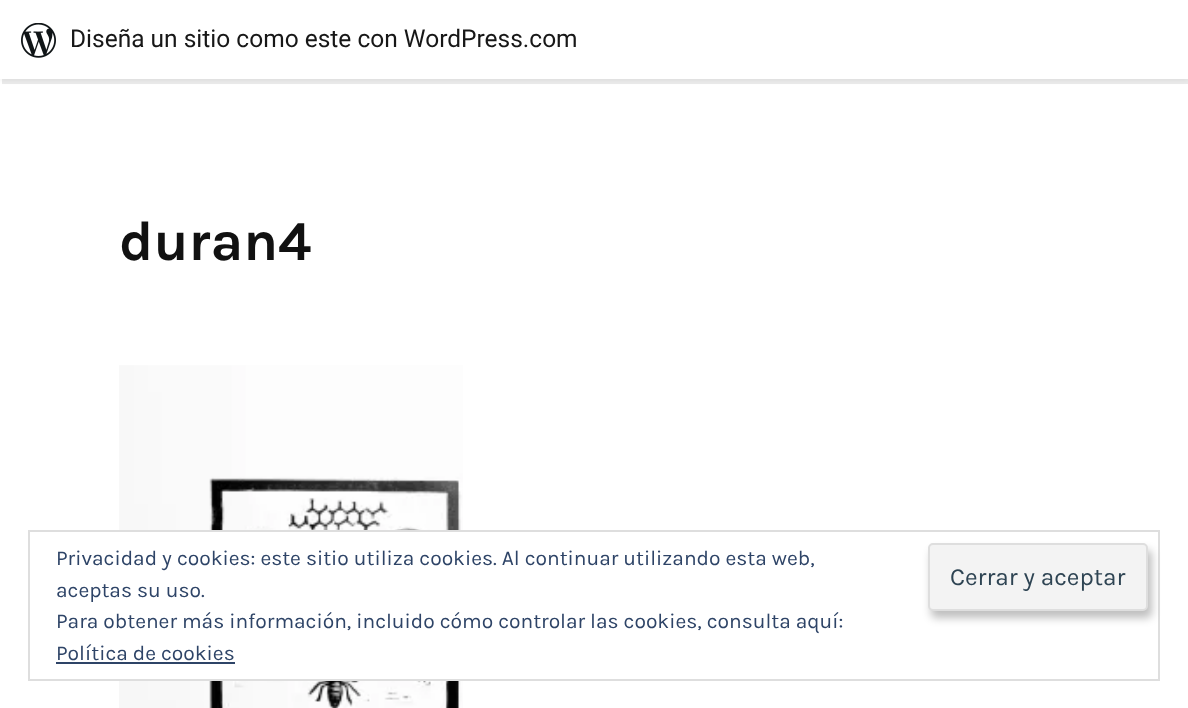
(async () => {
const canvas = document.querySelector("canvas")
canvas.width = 1188
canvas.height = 708
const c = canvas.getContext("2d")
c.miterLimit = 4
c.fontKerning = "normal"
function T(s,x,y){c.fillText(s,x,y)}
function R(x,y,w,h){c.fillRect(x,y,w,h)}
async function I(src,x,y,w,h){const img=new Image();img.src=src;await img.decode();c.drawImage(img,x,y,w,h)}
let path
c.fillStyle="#fff"
R(0,0,1188,708)
c.fillStyle="#0000000d"
c.filter="blur(2px)"
c.beginPath()
c.rect(0,2,1188,79)
c.fill()
c.filter="none"
c.fillStyle="#00000014"
path = new Path2D("M2 79v5h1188v-79h-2v74z")
c.fill(path)
c.fillStyle="#fff"
R(0,0,1188,79)
await I("1.png",21,23,35,35)
c.font="24.5px Roboto"
c.fillStyle="#171717"
T("Diseña un sitio como este con WordPress.com",70,47)
c.font="bold 56px Karla"
c.fillStyle="#111"
T("duran4",119,260)
await I("2.png",119,365,344,343)
c.fillStyle="#fff"
R(119,532,344,147)
c.strokeStyle="#dedede"
c.lineWidth=2
c.strokeRect(29,531,1130,149)
c.font="21px Karla"
c.fillStyle="#2e4467"
T("Privacidad y cookies: este sitio utiliza cookies. Al continuar utilizando esta web,",56,565)
c.fillStyle="#00000040"
c.filter="blur(4.5px)"
c.beginPath()
c.roundRect(931,550,221,68,5)
c.fill()
c.filter="none"
c.fillStyle="#f3f3f3"
c.beginPath()
c.roundRect(929,544,218,66,4)
c.fill()
c.stroke()
c.font="24.5px Karla"
c.fillStyle="#2e4453"
T("Cerrar y aceptar",950,585)
c.font="21px Karla"
c.fillStyle="#2e4467"
T("aceptas su uso.",56,597)
T("Para obtener más información, incluido cómo controlar las cookies, consulta aquí:",56,628)
T("Política de cookies",56,660)
R(56,662,179,2)
})()
